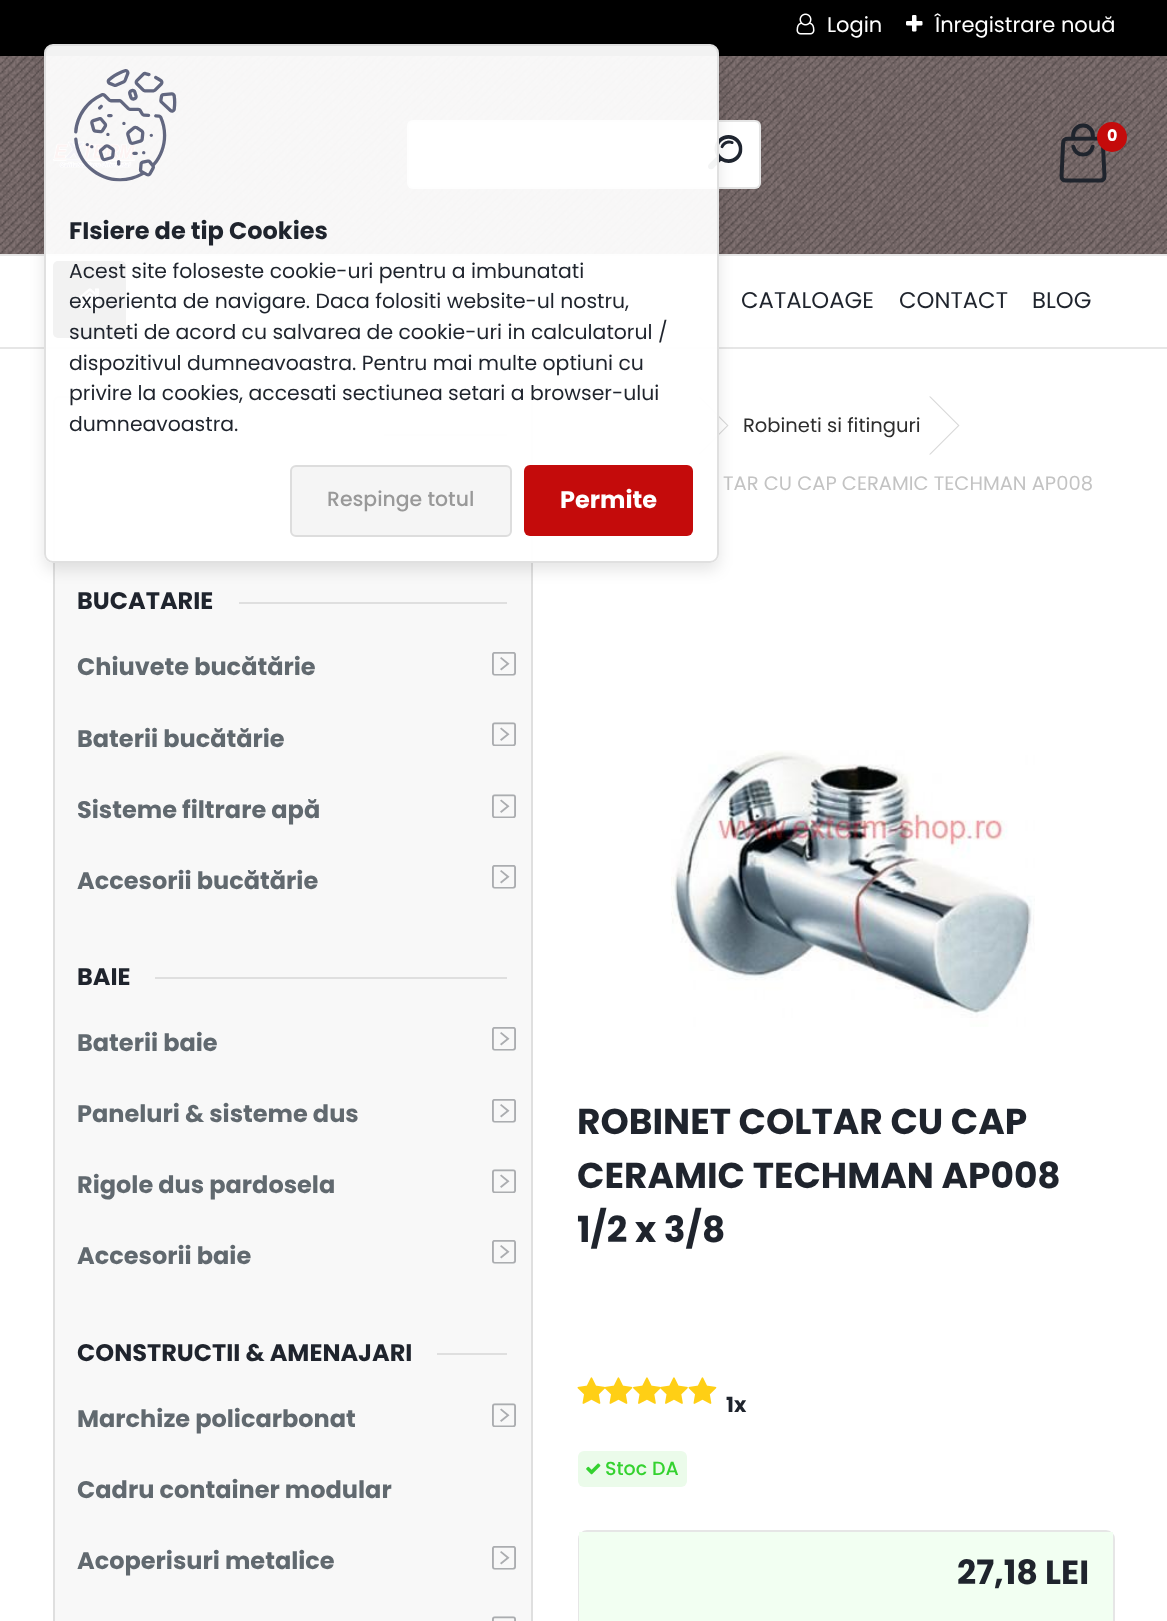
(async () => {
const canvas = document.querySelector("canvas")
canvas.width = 1167
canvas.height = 1621
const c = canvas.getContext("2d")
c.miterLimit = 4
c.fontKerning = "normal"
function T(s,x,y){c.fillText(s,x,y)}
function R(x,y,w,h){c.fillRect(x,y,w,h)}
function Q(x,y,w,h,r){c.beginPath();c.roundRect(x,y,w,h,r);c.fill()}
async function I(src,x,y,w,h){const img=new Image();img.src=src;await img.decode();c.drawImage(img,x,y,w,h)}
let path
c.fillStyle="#fff"
R(0,0,1167,1621)
c.fillStyle="#000"
R(0,0,1167,56)
await I("1.png",796,13,19,22)
c.font="21px Poppins"
c.fillStyle="#fff"
T("Login",827,32)
await I("2.png",906,15,17,17)
T("Înregistrare nouă",935,32)
c.fillStyle="#827373"
R(0,56,1167,198)
await I("3.png",0,56,1167,198)
c.fillStyle="#e6e6e6"
R(0,347,1167,2)
c.fillStyle="#fff"
Q(407,120,354,69,6)
c.beginPath()
c.roundRect(408,121,352,67,5)
c.strokeStyle="#0000001a"
c.lineWidth=2
c.stroke()
await I("4.png",708,135,35,35)
await I("5.png",1059,123,48,60)
c.fillStyle="#c40b0b"
c.beginPath()
c.arc(1112,137,15,0,7)
c.fill()
c.font="bold 16px Poppins"
c.fillStyle="#fff"
T("0",1107,141)
await I("6.png",53,141,83,27)
c.fillStyle="#e6e6e6"
R(0,254,1167,2)
c.fillStyle="#000"
Q(53,261,73,77,5)
await I("7.png",77,288,26,21)
c.font="22.75px Poppins"
c.fillStyle="#1f242d"
T("CATALOAGE",741,308)
T("CONTACT",899,308)
T("BLOG",1032,308)
c.fillStyle="#f8f8f8"
c.beginPath()
c.roundRect(54,397,478,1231,5)
c.fill()
c.strokeStyle="#dfdfdf"
c.stroke()
c.fillStyle="#dfdfdf"
R(384,434,123,2)
c.font="bold 24px Poppins"
c.fillStyle="#1f242d"
T("BUCATARIE",77,609)
c.fillStyle="#dfdfdf"
R(239,602,268,2)
c.fillStyle="#61696f"
T("Chiuvete bucătărie",77,675)
await I("8.png",492,652,24,24)
T("Baterii bucătărie",77,747)
await I("9.png",492,722,24,24)
T("Sisteme filtrare apă",77,818)
await I("9.png",492,794,24,24)
T("Accesorii bucătărie",77,889)
await I("8.png",492,865,24,24)
c.fillStyle="#1f242d"
T("BAIE",77,985)
c.fillStyle="#dfdfdf"
R(155,977,352,2)
c.fillStyle="#61696f"
T("Baterii baie",77,1051)
await I("8.png",492,1027,24,24)
T("Paneluri & sisteme dus",77,1122)
await I("8.png",492,1099,24,24)
T("Rigole dus pardosela",77,1193)
await I("9.png",492,1169,24,24)
T("Accesorii baie",77,1264)
await I("8.png",492,1240,24,24)
c.fillStyle="#1f242d"
T("CONSTRUCTII & AMENAJARI",77,1361)
c.fillStyle="#dfdfdf"
R(437,1353,70,2)
c.fillStyle="#61696f"
T("Marchize policarbonat",77,1427)
await I("9.png",492,1403,24,24)
T("Cadru container modular",77,1498)
T("Acoperisuri metalice",77,1569)
await I("8.png",492,1546,24,24)
await I("10.png",492,1616,24,5)
c.fillStyle="#d7d7d7"
path = new Path2D("M698 396.5h1.5l29 29h-1.5z")
c.fill(path)
c.fillStyle="#37373733"
path = new Path2D("M727 425.5h1.5l-29 29h-1.5z")
c.fill(path)
c.font="19.5px Poppins"
c.fillStyle="#2d2d2d"
T("Robineti si fitinguri",743,432)
c.fillStyle="#d7d7d7"
path = new Path2D("M929 396.5h1.5l29 29h-1.5z")
c.fill(path)
c.fillStyle="#37373733"
path = new Path2D("M958 425.5h1.5l-29 29h-1.5z")
c.fill(path)
c.fillStyle="#c3c3c3"
T("TAR CU CAP CERAMIC TECHMAN AP008",723,490)
await I("11.png",671,750,364,277)
c.font="bold 36px Poppins"
c.fillStyle="#1f242d"
T("ROBINET COLTAR CU CAP",577,1134)
T("CERAMIC TECHMAN AP008",577,1188)
T("1/2 x 3/8",577,1242)
await I("12.png",577,1377,29,27)
await I("13.png",604,1377,29,27)
await I("14.png",633,1377,28,27)
await I("15.png",660,1377,28,27)
await I("12.png",688,1377,29,27)
c.font="bold 21px Poppins"
T("1x",726,1412)
c.fillStyle="#ebfbea"
Q(578,1451,109,36,6)
await I("16.png",586,1463,15,12)
c.font="500 19px Poppins"
c.fillStyle="#34d22f"
T("Stoc DA",605,1475)
c.beginPath()
c.roundRect(579,1531,535,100,8)
c.strokeStyle="#e6e6e6"
c.stroke()
c.fillStyle="#f2fff2"
R(579,1532,534,89)
c.font="bold 33.5px Poppins"
c.fillStyle="#1f242d"
T("27,18 LEI",957,1584)
c.save()
path = new Path2D("M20 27h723v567h-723zm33 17h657c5 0 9 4 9 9v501c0 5-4 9-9 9h-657c-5 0-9-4-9-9v-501c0-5 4-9 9-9z")
c.clip(path,"evenodd")
c.fillStyle="#0000001a"
c.filter="blur(7.5px)"
c.beginPath()
c.roundRect(44,51,675,519,9)
c.fill()
c.filter="none"
c.restore()
c.fillStyle="#fffffff2"
c.beginPath()
c.roundRect(45,45,673,517,8)
c.fill()
c.strokeStyle="#e0e0e0"
c.stroke()
await I("17.png",74,69,103,113)
c.font="bold 24px Poppins"
c.fillStyle="#1f242d"
T("FIsiere de tip Cookies",69,239)
c.font="20.4px Poppins"
T("Acest site foloseste cookie-uri pentru a imbunatati",69,278)
T("experienta de navigare. Daca folositi website-ul nostru,",69,308)
T("sunteti de acord cu salvarea de cookie-uri in calculatorul /",69,339)
T("dispozitivul dumneavoastra. Pentru mai multe optiuni cu",69,370)
T("privire la cookies, accesati sectiunea setari a browser-ului",69,400)
T("dumneavoastra.",69,431)
c.fillStyle="#f5f5f5"
c.beginPath()
c.roundRect(291,466,220,70,5)
c.fill()
c.strokeStyle="#ddd"
c.stroke()
c.font="500 20.4px Poppins"
c.fillStyle="#999"
T("Respinge totul",327,506)
c.fillStyle="#c40b0b"
Q(524,465,169,71,6)
c.font="bold 24px Poppins"
c.fillStyle="#fff"
T("Permite",560,508)
})()
